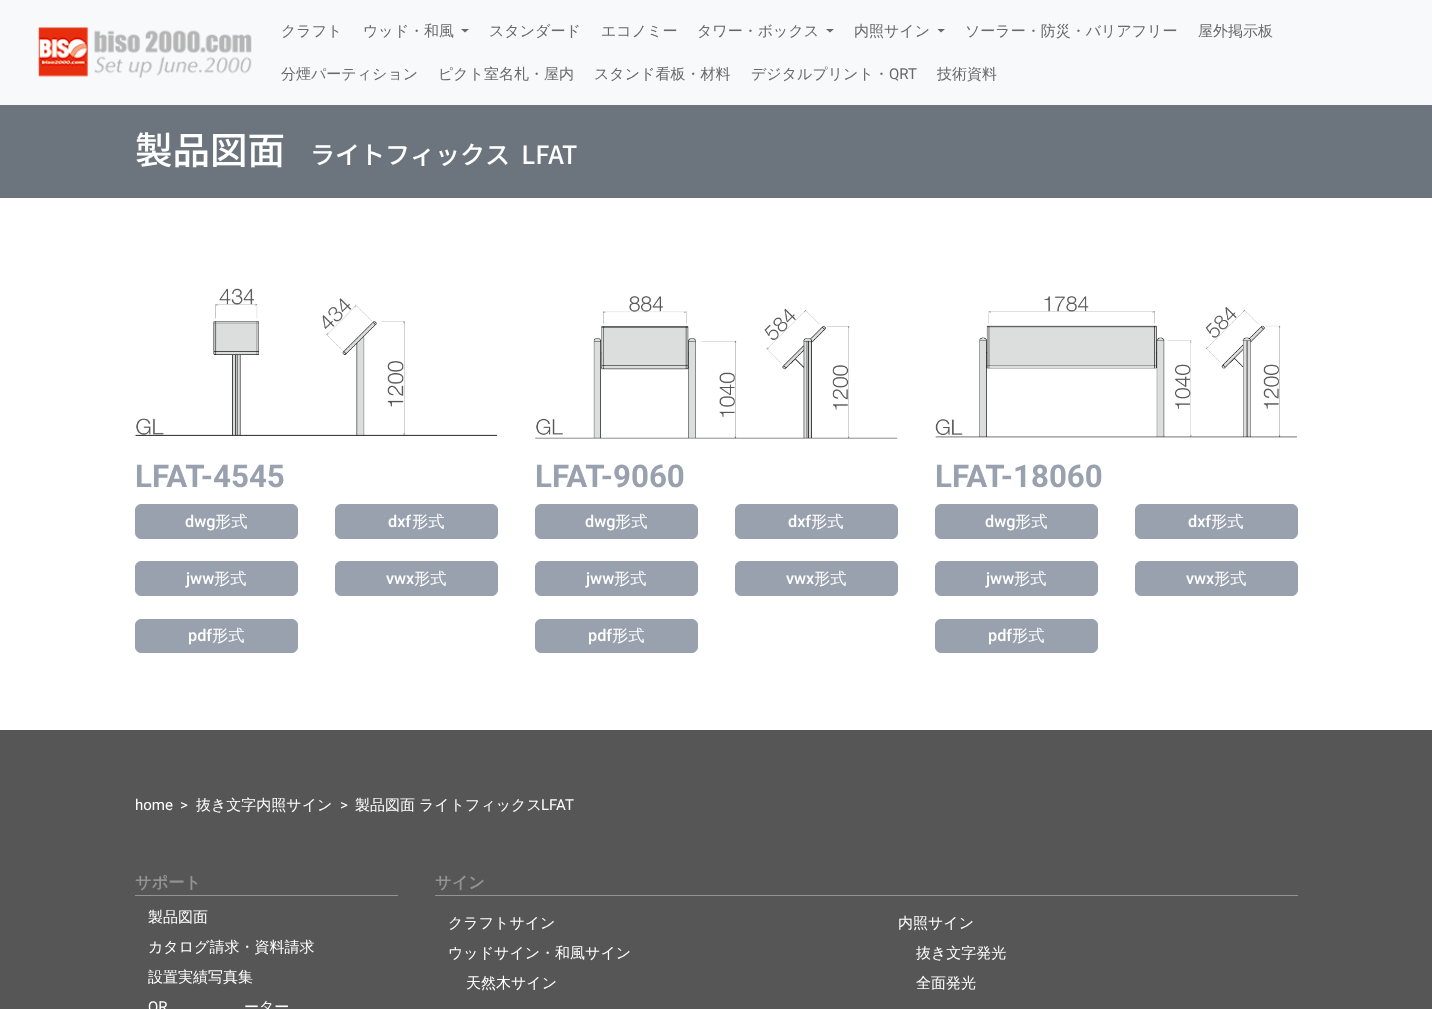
(async () => {
const canvas = document.querySelector("canvas")
canvas.width = 1432
canvas.height = 1009
const c = canvas.getContext("2d")
c.miterLimit = 4
c.fontKerning = "normal"
function T(s,x,y){c.fillText(s,x,y)}
function R(x,y,w,h){c.fillRect(x,y,w,h)}
async function I(src,x,y,w,h){const img=new Image();img.src=src;await img.decode();c.drawImage(img,x,y,w,h)}
let path
c.fillStyle="#fff"
R(0,0,1432,1009)
c.fillStyle="#f8f9fa"
R(0,0,1432,105)
await I("1.png",38,27,214,51)
c.font="500 15px WenQuanYi Zen Hei"
c.fillStyle="#686868"
T("クラフト",281,36)
T("ウッド・和風",363,36)
path = new Path2D("M461 29h8l-4 3.5z")
c.fill(path)
T("スタンダード",489,36)
T("エコノミー",601,36)
T("タワー・ボックス",697,36)
path = new Path2D("M826 29h8l-4 3.5z")
c.fill(path)
T("内照サイン",854,36)
path = new Path2D("M937.5 29h7.5l-4 3.5z")
c.fill(path)
T("ソーラー・防災・バリアフリー",965,36)
T("屋外掲示板",1198,36)
T("分煙パーティション",281,79)
T("ピクト室名札・屋内",438,79)
T("スタンド看板・材料",594,79)
T("デジタルプリント・",751,79)
c.font="15px Roboto"
T("QRT",889,79)
c.font="500 15px WenQuanYi Zen Hei"
T("技術資料",937,79)
c.fillStyle="#6c757d"
R(0,105,1432,93)
c.font="100 37.5px Noto Sans JP"
c.fillStyle="#fff"
T("製品図面",135,164)
c.font="100 25px Noto Sans JP"
T("ライトフィックス  LFAT",310,164)
await I("2.png",135,288,363,148)
c.font="bold 31.25px Roboto"
c.fillStyle="#99a0ae"
T("LFAT-4545",135,487)
c.beginPath()
c.roundRect(135.5,504.5,162,34,5.5)
c.fill()
c.strokeStyle="#99a0ae"
c.stroke()
c.font="500 16.25px Roboto"
c.fillStyle="#fff"
T("dwg",185,527)
c.font="500 16.25px WenQuanYi Zen Hei"
T("形式",215,527)
c.fillStyle="#99a0ae"
c.beginPath()
c.roundRect(335.5,504.5,162,34,5.5)
c.fill()
c.stroke()
c.font="500 16.25px Roboto"
c.fillStyle="#fff"
T("dxf",388,527)
c.font="500 16.25px WenQuanYi Zen Hei"
T("形式",412,527)
c.fillStyle="#99a0ae"
c.beginPath()
c.roundRect(135.5,561.5,162,34,5.5)
c.fill()
c.stroke()
c.font="500 16.25px Roboto"
c.fillStyle="#fff"
T("jww",186,584)
c.font="500 16.25px WenQuanYi Zen Hei"
T("形式",214,584)
c.fillStyle="#99a0ae"
c.beginPath()
c.roundRect(335.5,561.5,162,34,5.5)
c.fill()
c.stroke()
c.font="500 16.25px Roboto"
c.fillStyle="#fff"
T("vwx",386,584)
c.font="500 16.25px WenQuanYi Zen Hei"
T("形式",414,584)
c.fillStyle="#99a0ae"
c.beginPath()
c.roundRect(135.5,619.5,162,33,5.5)
c.fill()
c.stroke()
c.font="500 16.25px Roboto"
c.fillStyle="#fff"
T("pdf",188,641)
c.font="500 16.25px WenQuanYi Zen Hei"
T("形式",212,641)
await I("3.png",535,296,363,143)
c.font="bold 31.25px Roboto"
c.fillStyle="#99a0ae"
T("LFAT-9060",535,487)
c.beginPath()
c.roundRect(535.5,504.5,162,34,5.5)
c.fill()
c.stroke()
c.font="500 16.25px Roboto"
c.fillStyle="#fff"
T("dwg",585,527)
c.font="500 16.25px WenQuanYi Zen Hei"
T("形式",615,527)
c.fillStyle="#99a0ae"
c.beginPath()
c.roundRect(735.5,504.5,162,34,5.5)
c.fill()
c.stroke()
c.font="500 16.25px Roboto"
c.fillStyle="#fff"
T("dxf",788,527)
c.font="500 16.25px WenQuanYi Zen Hei"
T("形式",811,527)
c.fillStyle="#99a0ae"
c.beginPath()
c.roundRect(535.5,561.5,162,34,5.5)
c.fill()
c.stroke()
c.font="500 16.25px Roboto"
c.fillStyle="#fff"
T("jww",586,584)
c.font="500 16.25px WenQuanYi Zen Hei"
T("形式",614,584)
c.fillStyle="#99a0ae"
c.beginPath()
c.roundRect(735.5,561.5,162,34,5.5)
c.fill()
c.stroke()
c.font="500 16.25px Roboto"
c.fillStyle="#fff"
T("vwx",786,584)
c.font="500 16.25px WenQuanYi Zen Hei"
T("形式",814,584)
c.fillStyle="#99a0ae"
c.beginPath()
c.roundRect(535.5,619.5,162,33,5.5)
c.fill()
c.stroke()
c.font="500 16.25px Roboto"
c.fillStyle="#fff"
T("pdf",588,641)
c.font="500 16.25px WenQuanYi Zen Hei"
T("形式",612,641)
await I("4.png",935,296,362,142)
c.font="bold 31.25px Roboto"
c.fillStyle="#99a0ae"
T("LFAT-18060",935,487)
c.beginPath()
c.roundRect(935.5,504.5,162,34,5.5)
c.fill()
c.stroke()
c.font="500 16.25px Roboto"
c.fillStyle="#fff"
T("dwg",985,527)
c.font="500 16.25px WenQuanYi Zen Hei"
T("形式",1015,527)
c.fillStyle="#99a0ae"
c.beginPath()
c.roundRect(1135.5,504.5,162,34,5.5)
c.fill()
c.stroke()
c.font="500 16.25px Roboto"
c.fillStyle="#fff"
T("dxf",1188,527)
c.font="500 16.25px WenQuanYi Zen Hei"
T("形式",1211,527)
c.fillStyle="#99a0ae"
c.beginPath()
c.roundRect(935.5,561.5,162,34,5.5)
c.fill()
c.stroke()
c.font="500 16.25px Roboto"
c.fillStyle="#fff"
T("jww",986,584)
c.font="500 16.25px WenQuanYi Zen Hei"
T("形式",1014,584)
c.fillStyle="#99a0ae"
c.beginPath()
c.roundRect(1135.5,561.5,162,34,5.5)
c.fill()
c.stroke()
c.font="500 16.25px Roboto"
c.fillStyle="#fff"
T("vwx",1186,584)
c.font="500 16.25px WenQuanYi Zen Hei"
T("形式",1214,584)
c.fillStyle="#99a0ae"
c.beginPath()
c.roundRect(935.5,619.5,162,33,5.5)
c.fill()
c.stroke()
c.font="500 16.25px Roboto"
c.fillStyle="#fff"
T("pdf",988,641)
c.font="500 16.25px WenQuanYi Zen Hei"
T("形式",1012,641)
c.fillStyle="#565656"
R(0,730,1432,279)
c.font="15px Roboto"
c.fillStyle="#fff"
T("home",135,810)
T(">",180,810)
c.font="500 15px WenQuanYi Zen Hei"
T("抜き文字内照サイン",196,810)
c.font="15px Roboto"
T(">",340,810)
c.font="500 15px WenQuanYi Zen Hei"
T("製品図面",355,810)
T("ライトフィックス",419,810)
c.font="15px Roboto"
T("LFAT",541,810)
c.fillStyle="#939393"
R(135,895,263,1)
c.font="bold 16.25px WenQuanYi Zen Hei"
T("サポート",135,888)
c.font="500 15px WenQuanYi Zen Hei"
c.fillStyle="#fff"
T("製品図面",148,922)
T("カタログ請求・資料請求",148,952)
T("設置実績写真集",148,982)
c.font="15px Roboto"
T("QR",148,1012)
c.font="500 15px WenQuanYi Zen Hei"
T("ーター",244,1012)
c.fillStyle="#939393"
R(435,895,863,1)
c.font="bold 16.25px WenQuanYi Zen Hei"
T("サイン",435,888)
c.font="500 15px WenQuanYi Zen Hei"
c.fillStyle="#fff"
T("クラフトサイン",448,928)
T("ウッドサイン・和風サイン",448,958)
T("天然木サイン",466,988)
T("内照サイン",898,928)
T("抜き文字発光",916,958)
T("全面発光",916,988)
})()
